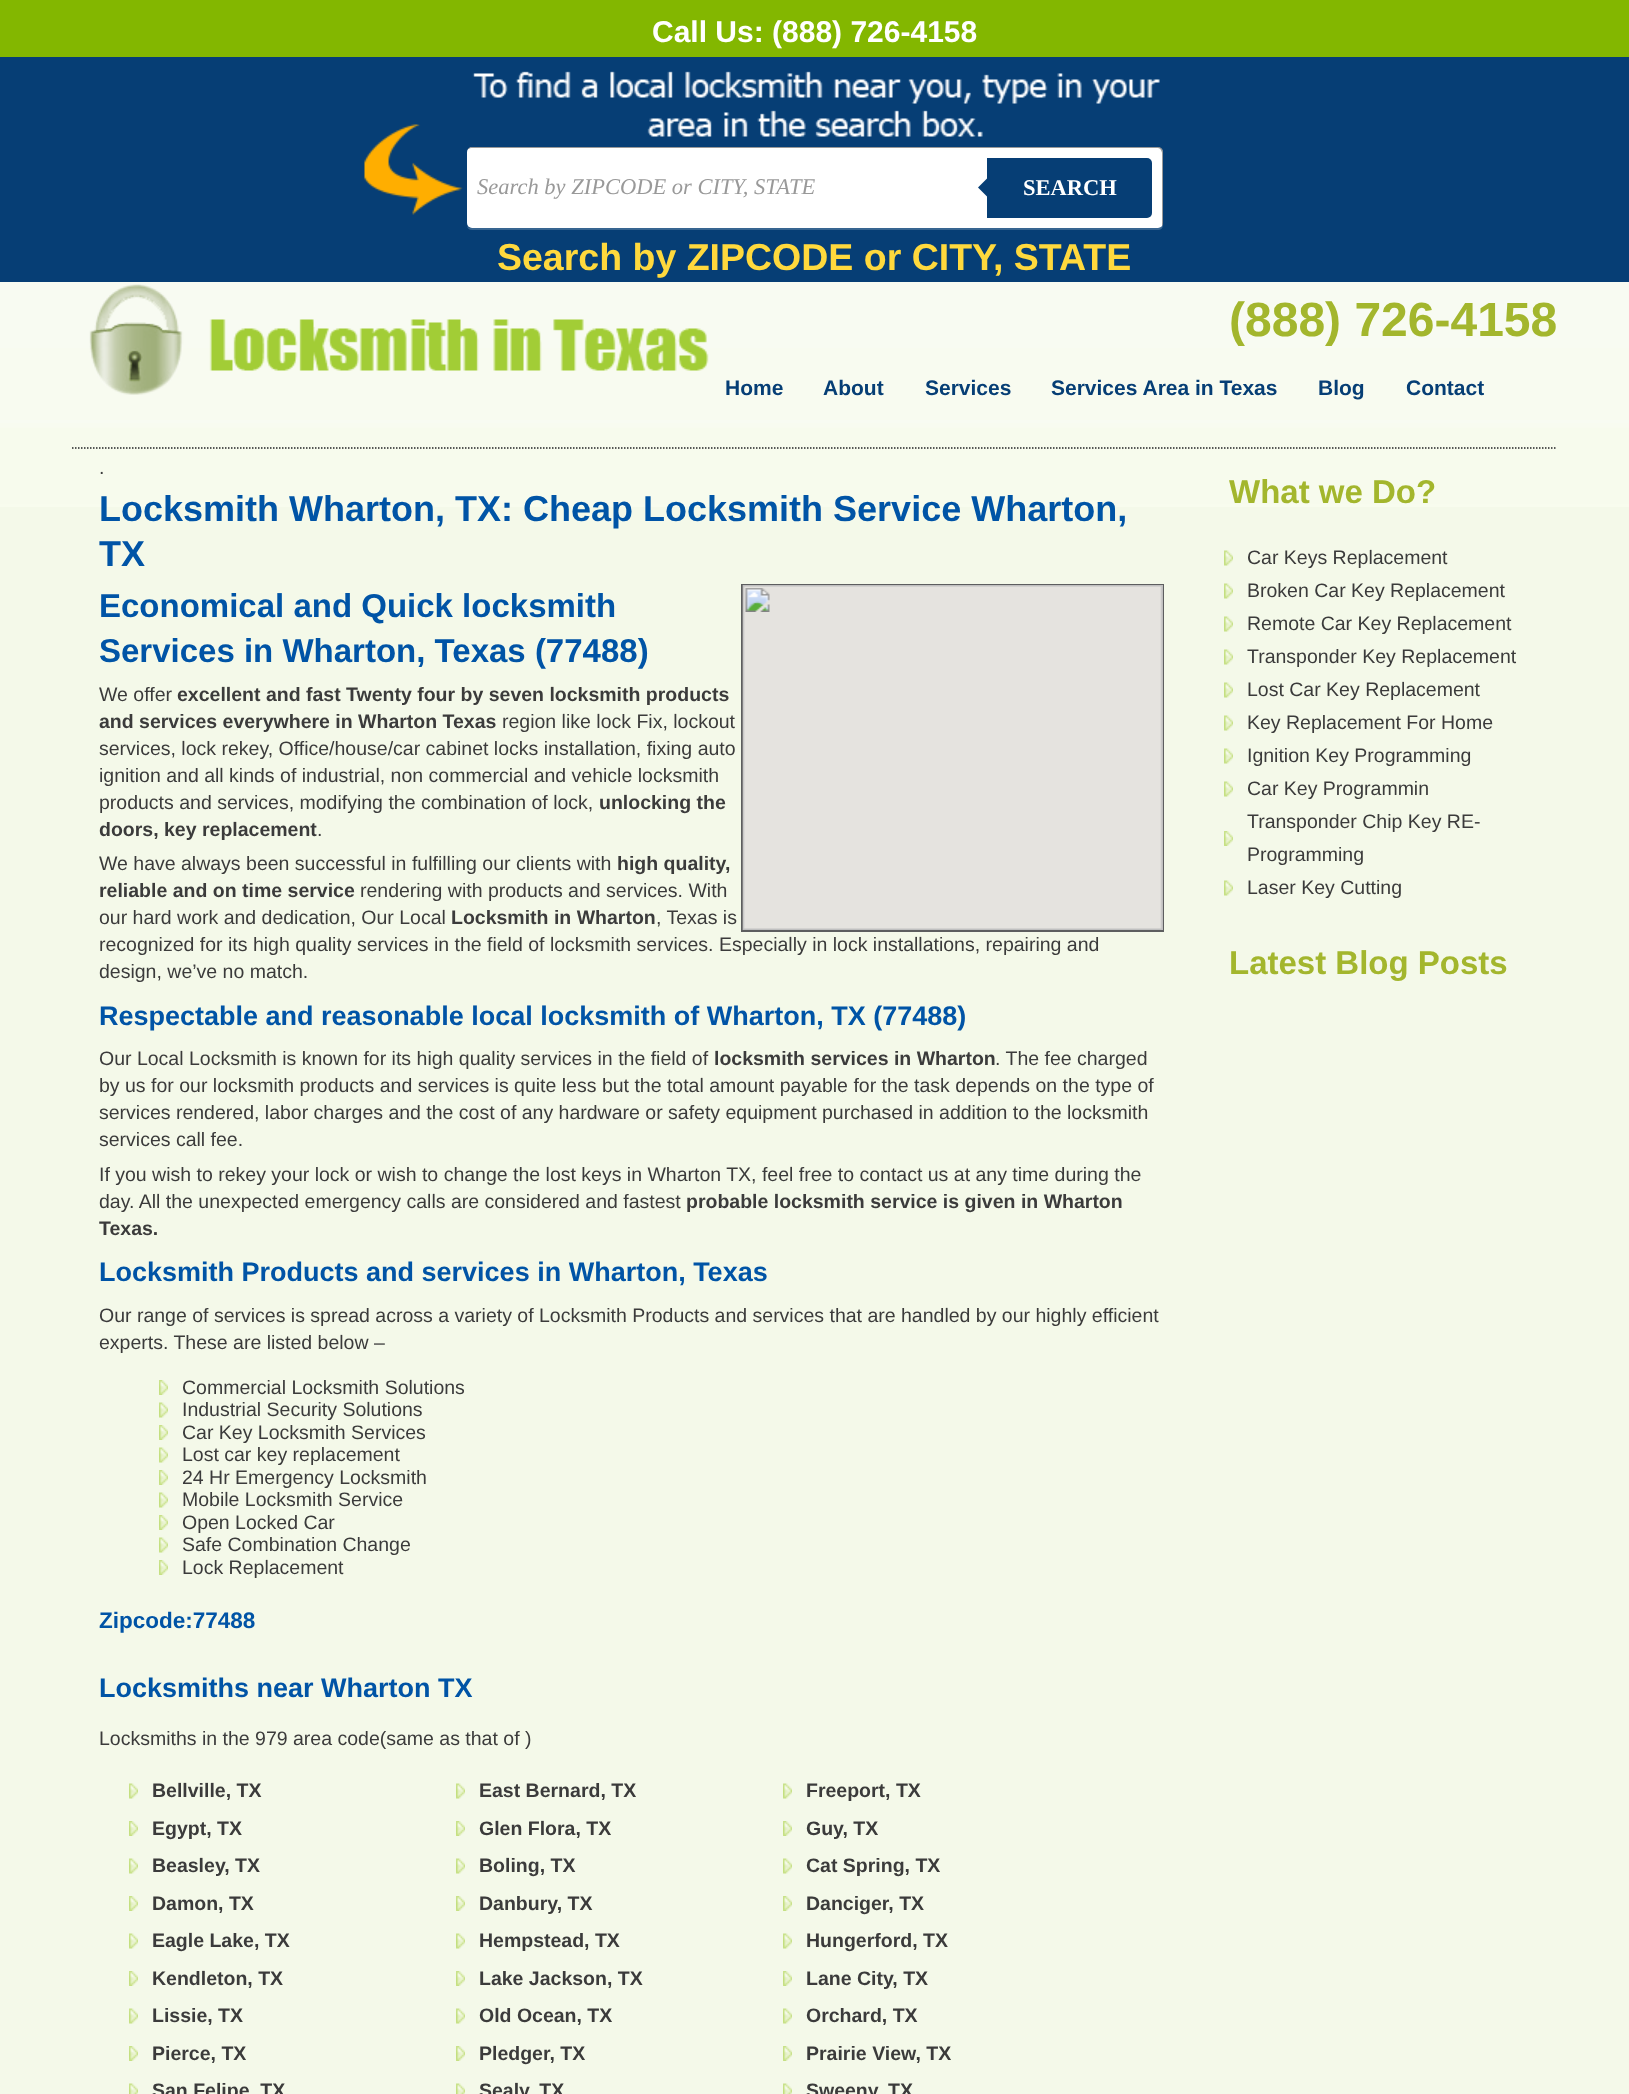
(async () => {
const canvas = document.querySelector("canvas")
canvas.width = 1629
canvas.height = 2094
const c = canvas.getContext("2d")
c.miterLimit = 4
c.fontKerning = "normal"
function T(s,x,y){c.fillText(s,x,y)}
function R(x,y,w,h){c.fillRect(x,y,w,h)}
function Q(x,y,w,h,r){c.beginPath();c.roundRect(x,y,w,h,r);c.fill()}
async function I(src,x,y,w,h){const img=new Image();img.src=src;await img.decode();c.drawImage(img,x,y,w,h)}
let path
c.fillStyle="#f4f9e9"
R(0,0,1629,2094)
await I("1.png",0,282,1629,225)
c.fillStyle="#83b700"
R(0,0,1629,57)
c.font="bold 30px Liberation Sans"
c.fillStyle="#fff"
T("Call Us: (888) 726-4158",652,42)
c.fillStyle="#063e75"
R(0,57,1629,225)
await I("2.png",364,71,796,144)
c.fillStyle="#386591"
path = new Path2D("M467 226c0 2 2 4 5 4h686c3 0 5-2 5-5v-71l-1-2v72c0 2-2 4-4 4h-687c-2 0-3-1-4-2z")
c.fill(path)
c.fillStyle="#fff"
Q(467,147,696,81,5)
c.fillStyle="#00000066"
path = new Path2D("M471 148h687c2 0 4 3 4 5v73c1-1 1-2 1-3v-71c0-3-2-5-5-5h-686c-2 0-4 1-5 3c1-1 3-2 4-2z")
c.fill(path)
c.font="italic 22.5px Liberation Serif"
c.fillStyle="#999"
T("Search by ZIPCODE or CITY, STATE",477,194)
c.fillStyle="#063e75"
c.beginPath()
c.roundRect(987,158,165,60,[0,5,5,0])
c.fill()
path = new Path2D("M990 175.5v24l-12-12z")
c.fill(path)
c.font="bold 22.5px Liberation Serif"
c.fillStyle="#fff"
T("SEARCH",1023,195)
c.font="bold 37.5px Liberation Sans"
c.fillStyle="#ffd93d"
T("Search by ZIPCODE or CITY, STATE",497,270)
await I("3.png",89,284,620,111)
c.font="bold 48px Liberation Sans"
c.fillStyle="#a3b62d"
T("(888) 726-4158",1229,336)
c.font="bold 21px Liberation Sans"
c.fillStyle="#063e75"
T("Home",725,395)
T("About",823,395)
T("Services",925,395)
T("Services Area in Texas",1051,395)
T("Blog",1318,395)
T("Contact",1406,395)
path = new Path2D("M72 448h1485")
c.strokeStyle="#222324"
c.lineWidth=1.5
c.setLineDash([1.5,1.5])
c.stroke(path)
c.font="19.5px Liberation Sans"
c.fillStyle="#3b3b3b"
T(".",99,474)
c.font="bold 36px Liberation Sans"
c.fillStyle="#0054a6"
T("Locksmith Wharton, TX: Cheap Locksmith Service Wharton,",99,521)
T("TX",99,566)
c.font="bold 33px Liberation Sans"
T("Economical and Quick locksmith",99,617)
T("Services in Wharton, Texas (77488)",99,662)
c.strokeStyle="#5d5e5f"
c.lineWidth=2
c.setLineDash([])
c.strokeRect(742,585,421,346)
await I("4.png",742,585,421,345)
c.font="19.5px Liberation Sans"
c.fillStyle="#3b3b3b"
T("We offer",99,701)
c.font="bold 19.5px Liberation Sans"
T("excellent and fast Twenty four by seven locksmith products",177,701)
T("and services everywhere in Wharton Texas",99,728)
c.font="19.5px Liberation Sans"
T("region like lock Fix, lockout",502,728)
T("services, lock rekey, Office/house/car cabinet locks installation, fixing auto",99,755)
T("ignition and all kinds of industrial, non commercial and vehicle locksmith",99,782)
T("products and services, modifying the combination of lock,",99,809)
c.font="bold 19.5px Liberation Sans"
T("unlocking the",599,809)
T("doors, key replacement",99,836)
c.font="19.5px Liberation Sans"
T(".",317,836)
T("We have always been successful in fulfilling our clients with",99,870)
c.font="bold 19.5px Liberation Sans"
T("high quality,",617,870)
T("reliable and on time service",99,897)
c.font="19.5px Liberation Sans"
T("rendering with products and services. With",360,897)
T("our hard work and dedication, Our Local",99,924)
c.font="bold 19.5px Liberation Sans"
T("Locksmith in Wharton",451,924)
c.font="19.5px Liberation Sans"
T(", Texas is",656,924)
T("recognized for its high quality services in the field of locksmith services. Especially in lock installations, repairing and",99,951)
T("design, we’ve no match.",99,978)
c.font="bold 27px Liberation Sans"
c.fillStyle="#0054a6"
T("Respectable and reasonable local locksmith of Wharton, TX (77488)",99,1025)
c.font="19.5px Liberation Sans"
c.fillStyle="#3b3b3b"
T("Our Local Locksmith is known for its high quality services in the field of",99,1065)
c.font="bold 19.5px Liberation Sans"
T("locksmith services in Wharton",714,1065)
c.font="19.5px Liberation Sans"
T(". The fee charged",995,1065)
T("by us for our locksmith products and services is quite less but the total amount payable for the task depends on the type of",99,1092)
T("services rendered, labor charges and the cost of any hardware or safety equipment purchased in addition to the locksmith",99,1119)
T("services call fee.",99,1146)
T("If you wish to rekey your lock or wish to change the lost keys in Wharton TX, feel free to contact us at any time during the",99,1181)
T("day. All the unexpected emergency calls are considered and fastest",99,1208)
c.font="bold 19.5px Liberation Sans"
T("probable locksmith service is given in Wharton",686,1208)
T("Texas.",99,1235)
c.font="bold 27px Liberation Sans"
c.fillStyle="#0054a6"
T("Locksmith Products and services in Wharton, Texas",99,1281)
c.font="19.5px Liberation Sans"
c.fillStyle="#3b3b3b"
T("Our range of services is spread across a variety of Locksmith Products and services that are handled by our highly efficient",99,1322)
T("experts. These are listed below –",99,1349)
await I("5.png",159,1380,9,15)
T("Commercial Locksmith Solutions",182,1394)
await I("6.png",159,1402,9,16)
T("Industrial Security Solutions",182,1416)
await I("5.png",159,1425,9,15)
T("Car Key Locksmith Services",182,1439)
await I("6.png",159,1447,9,16)
T("Lost car key replacement",182,1461)
await I("5.png",159,1470,9,15)
T("24 Hr Emergency Locksmith",182,1484)
await I("6.png",159,1492,9,16)
T("Mobile Locksmith Service",182,1506)
await I("5.png",159,1515,9,15)
T("Open Locked Car",182,1529)
await I("6.png",159,1537,9,16)
T("Safe Combination Change",182,1551)
await I("5.png",159,1560,9,15)
T("Lock Replacement",182,1574)
c.font="bold 22.5px Liberation Sans"
c.fillStyle="#0054a6"
T("Zipcode:77488",99,1628)
c.font="bold 27px Liberation Sans"
T("Locksmiths near Wharton TX",99,1697)
c.font="19.5px Liberation Sans"
c.fillStyle="#3b3b3b"
T("Locksmiths in the 979 area code(same as that of )",99,1745)
await I("6.png",129,1783,9,16)
c.font="bold 19.5px Liberation Sans"
T("Bellville, TX",152,1797)
await I("7.png",456,1783,9,16)
T("East Bernard, TX",479,1797)
await I("6.png",783,1783,9,16)
T("Freeport, TX",806,1797)
await I("5.png",129,1821,9,15)
T("Egypt, TX",152,1835)
await I("8.png",456,1821,9,15)
T("Glen Flora, TX",479,1835)
await I("5.png",783,1821,9,15)
T("Guy, TX",806,1835)
await I("6.png",129,1858,9,16)
T("Beasley, TX",152,1872)
await I("7.png",456,1858,9,16)
T("Boling, TX",479,1872)
await I("6.png",783,1858,9,16)
T("Cat Spring, TX",806,1872)
await I("5.png",129,1896,9,15)
T("Damon, TX",152,1910)
await I("8.png",456,1896,9,15)
T("Danbury, TX",479,1910)
await I("5.png",783,1896,9,15)
T("Danciger, TX",806,1910)
await I("6.png",129,1933,9,16)
T("Eagle Lake, TX",152,1947)
await I("7.png",456,1933,9,16)
T("Hempstead, TX",479,1947)
await I("6.png",783,1933,9,16)
T("Hungerford, TX",806,1947)
await I("5.png",129,1971,9,15)
T("Kendleton, TX",152,1985)
await I("8.png",456,1971,9,15)
T("Lake Jackson, TX",479,1985)
await I("5.png",783,1971,9,15)
T("Lane City, TX",806,1985)
await I("6.png",129,2008,9,16)
T("Lissie, TX",152,2022)
await I("7.png",456,2008,9,16)
T("Old Ocean, TX",479,2022)
await I("6.png",783,2008,9,16)
T("Orchard, TX",806,2022)
await I("5.png",129,2046,9,15)
T("Pierce, TX",152,2060)
await I("8.png",456,2046,9,15)
T("Pledger, TX",479,2060)
await I("5.png",783,2046,9,15)
T("Prairie View, TX",806,2060)
await I("9.png",129,2083,9,11)
T("San Felipe, TX",152,2097)
await I("10.png",456,2083,9,11)
T("Sealy, TX",479,2097)
await I("9.png",783,2083,9,11)
T("Sweeny, TX",806,2097)
c.font="bold 33px Liberation Sans"
c.fillStyle="#a3b62d"
T("What we Do?",1229,503)
await I("7.png",1224,550,9,16)
c.font="19.5px Liberation Sans"
c.fillStyle="#3b3b3b"
T("Car Keys Replacement",1247,564)
await I("7.png",1224,583,9,16)
T("Broken Car Key Replacement",1247,597)
await I("7.png",1224,616,9,16)
T("Remote Car Key Replacement",1247,630)
await I("7.png",1224,649,9,16)
T("Transponder Key Replacement",1247,663)
await I("7.png",1224,682,9,16)
T("Lost Car Key Replacement",1247,696)
await I("7.png",1224,715,9,16)
T("Key Replacement For Home",1247,729)
await I("7.png",1224,748,9,16)
T("Ignition Key Programming",1247,762)
await I("7.png",1224,781,9,16)
T("Car Key Programmin",1247,795)
await I("8.png",1224,831,9,15)
T("Transponder Chip Key RE-",1247,828)
T("Programming",1247,861)
await I("7.png",1224,880,9,16)
T("Laser Key Cutting",1247,894)
c.font="bold 33px Liberation Sans"
c.fillStyle="#a3b62d"
T("Latest Blog Posts",1229,974)
})()
